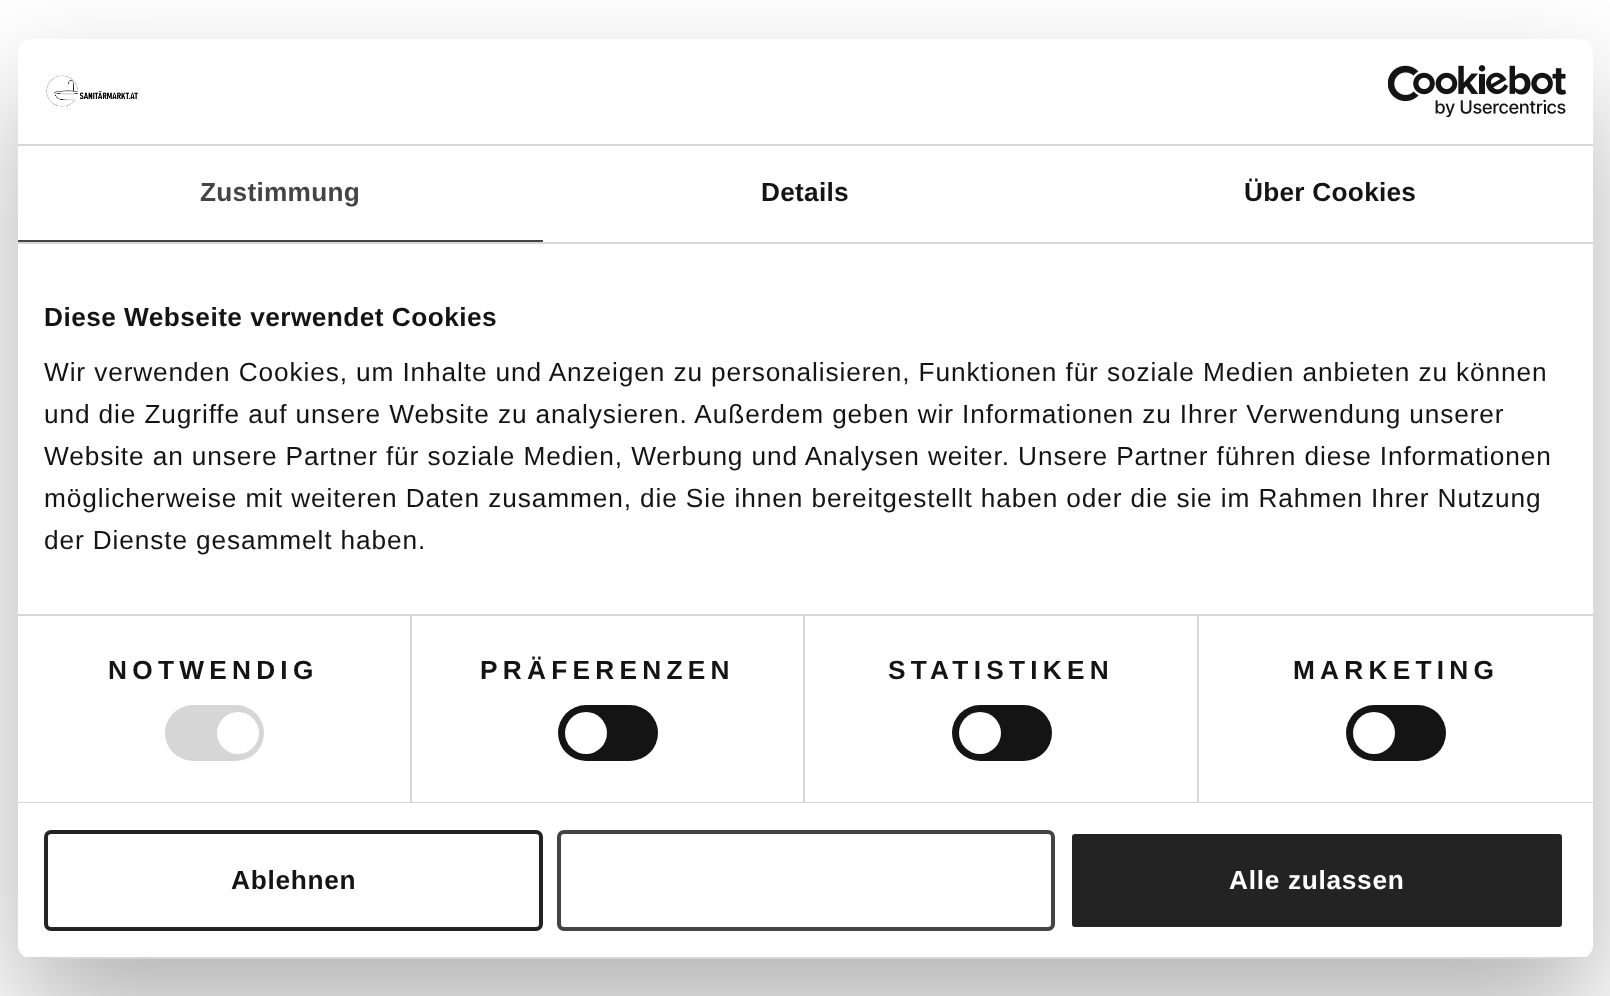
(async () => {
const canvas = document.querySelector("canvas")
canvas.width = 1610
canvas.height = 996
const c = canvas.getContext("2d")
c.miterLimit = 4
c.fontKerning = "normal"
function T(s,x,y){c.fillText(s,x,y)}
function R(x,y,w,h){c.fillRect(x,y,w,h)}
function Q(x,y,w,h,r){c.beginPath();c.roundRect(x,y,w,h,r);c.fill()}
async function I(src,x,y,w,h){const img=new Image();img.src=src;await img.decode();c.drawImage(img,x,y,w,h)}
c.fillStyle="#fff"
R(0,0,1610,996)
c.fillStyle="#0000004d"
c.filter="blur(59.5px)"
c.beginPath()
c.roundRect(18,95,1575,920,14)
c.fill()
c.filter="none"
c.fillStyle="#fff"
Q(18,39,1575,920,14)
c.fillStyle="#d6d6d6"
R(18,144,1575,2)
await I("1.png",46,75,92,32)
await I("2.png",1388,65,178,52)
R(18,242,1575,2)
c.fillStyle="#444"
R(18,240,525,2)
c.letterSpacing="0.25px"
c.font="bold 26.25px Liberation Sans"
T("Zustimmung",200,201)
c.fillStyle="#141414"
T("Details",761,201)
T("Über Cookies",1244,201)
c.fillStyle="#d6d6d6"
R(18,614,1575,2)
c.letterSpacing="0.45px"
c.fillStyle="#141414"
T("Diese Webseite verwendet Cookies",44,326)
c.letterSpacing="0.88px"
c.font="26.25px Liberation Sans"
T("Wir verwenden Cookies, um Inhalte und Anzeigen zu personalisieren, Funktionen für soziale Medien anbieten zu können",44,381)
T("und die Zugriffe auf unsere Website zu analysieren. Außerdem geben wir Informationen zu Ihrer Verwendung unserer",44,423)
T("Website an unsere Partner für soziale Medien, Werbung und Analysen weiter. Unsere Partner führen diese Informationen",44,465)
T("möglicherweise mit weiteren Daten zusammen, die Sie ihnen bereitgestellt haben oder die sie im Rahmen Ihrer Nutzung",44,507)
T("der Dienste gesammelt haben.",44,549)
c.fillStyle="#d6d6d6"
R(18,802,1575,1)
R(410,616,2,186)
c.letterSpacing="5.25px"
c.font="bold 26.25px Liberation Sans"
c.fillStyle="#141414"
T("NOTWENDIG",108,679)
c.fillStyle="#d6d6d6"
Q(165,705,99,56,28)
c.fillStyle="#fff"
c.beginPath()
c.arc(238,733,21,0,7)
c.fill()
c.fillStyle="#d6d6d6"
R(803,616,2,186)
c.fillStyle="#141414"
T("PRÄFERENZEN",480,679)
Q(558,705,100,56,28)
c.fillStyle="#fff"
c.beginPath()
c.arc(586,733,21,0,7)
c.fill()
c.fillStyle="#d6d6d6"
R(1197,616,2,186)
c.fillStyle="#141414"
T("STATISTIKEN",888,679)
Q(952,705,100,56,28)
c.fillStyle="#fff"
c.beginPath()
c.arc(980,733,21,0,7)
c.fill()
c.fillStyle="#141414"
T("MARKETING",1293,679)
Q(1346,705,100,56,28)
c.fillStyle="#fff"
c.beginPath()
c.arc(1374,733,21,0,7)
c.fill()
c.save()
c.beginPath()
c.roundRect(18,39,1575,920,14)
c.clip()
c.fillStyle="#d6d6d6"
R(18,957,1575,2)
c.restore()
c.beginPath()
c.roundRect(46,832,495,97,5)
c.strokeStyle="#232323"
c.lineWidth=4
c.stroke()
c.letterSpacing="0.7px"
c.fillStyle="#141414"
T("Ablehnen",231,889)
c.beginPath()
c.roundRect(559,832,494,97,5)
c.strokeStyle="#444"
c.stroke()
c.fillStyle="#232323"
c.beginPath()
c.roundRect(1070,832,494,97,5)
c.fill()
c.strokeStyle="#fff"
c.stroke()
c.fillStyle="#fff"
T("Alle zulassen",1229,889)
})()
